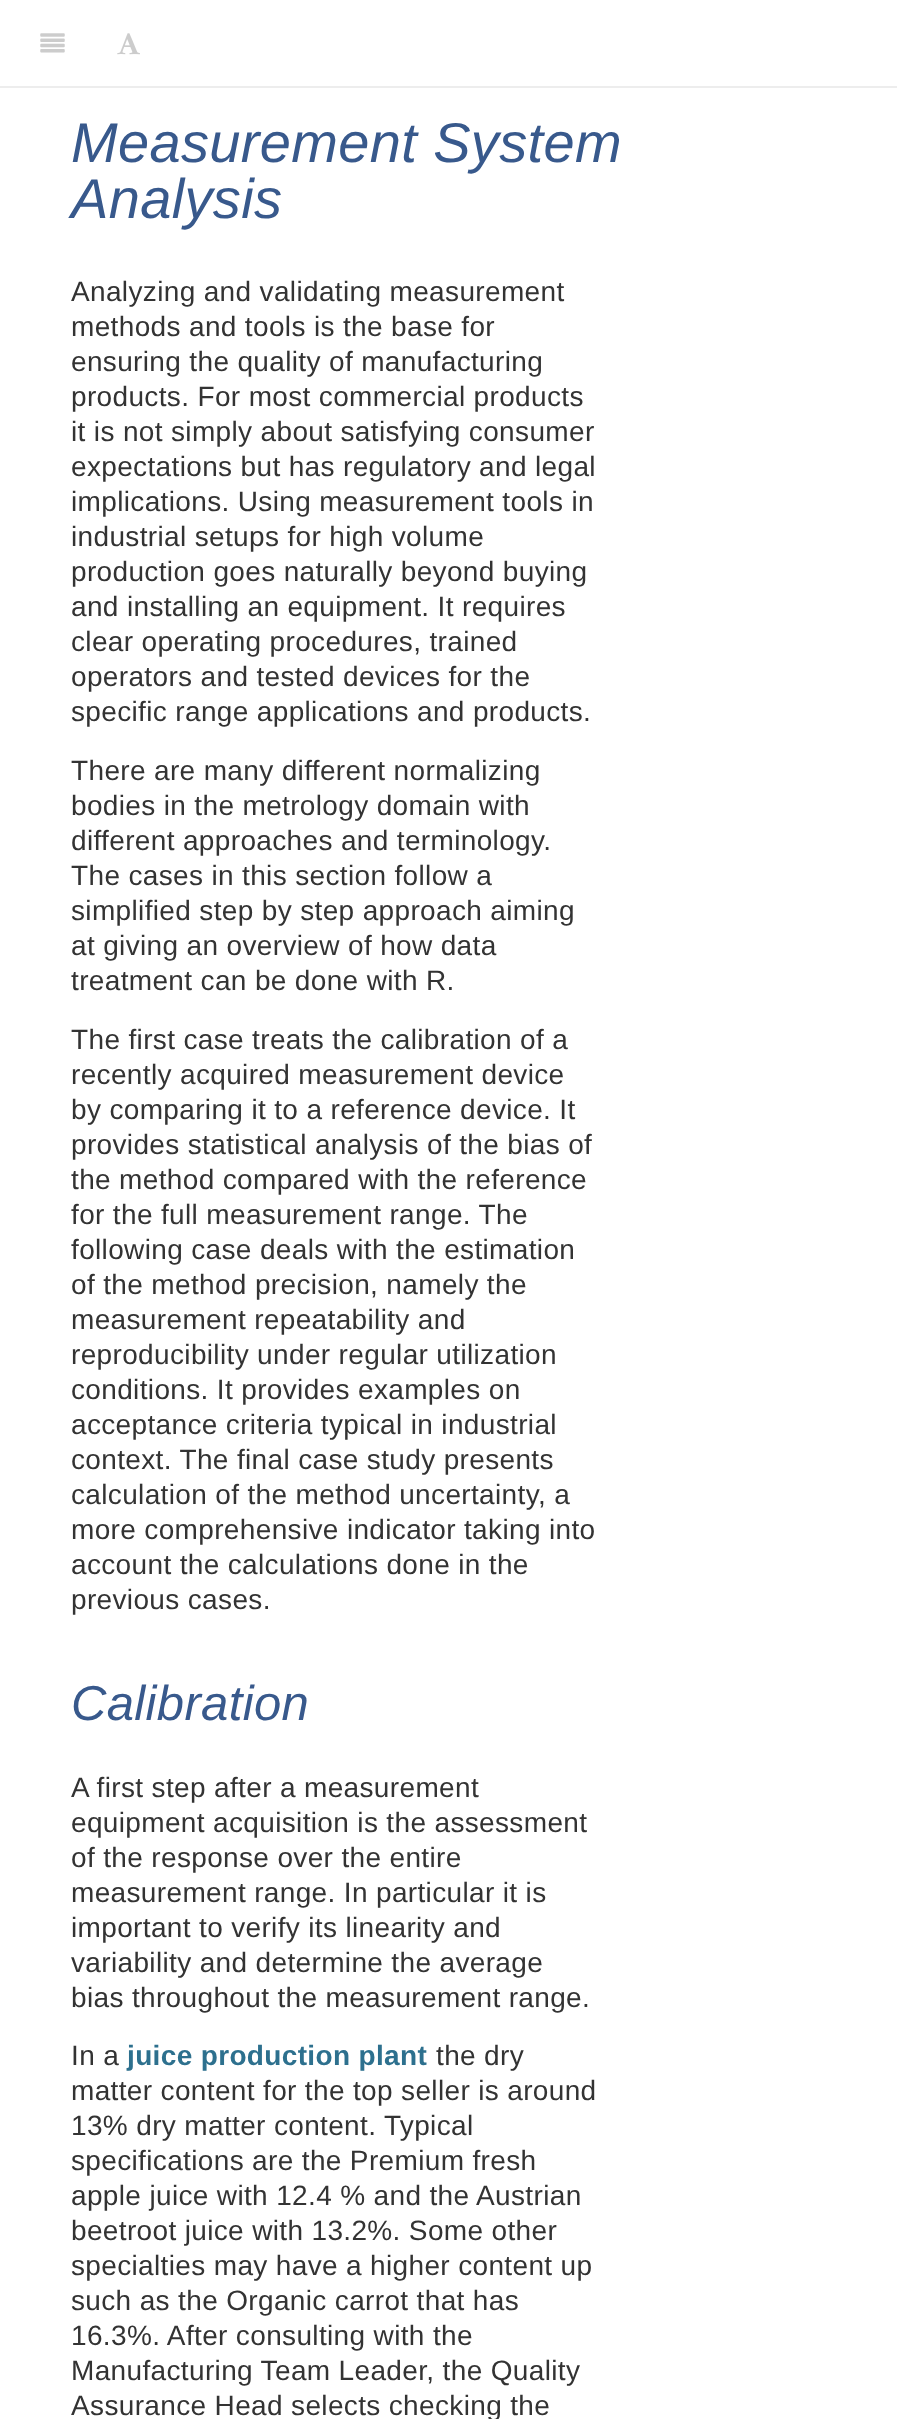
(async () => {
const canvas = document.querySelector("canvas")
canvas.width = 897
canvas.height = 2419
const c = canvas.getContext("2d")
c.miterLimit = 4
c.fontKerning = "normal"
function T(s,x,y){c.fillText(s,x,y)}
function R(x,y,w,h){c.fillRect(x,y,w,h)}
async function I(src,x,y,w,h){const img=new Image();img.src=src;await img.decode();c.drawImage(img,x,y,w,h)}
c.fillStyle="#fff"
R(0,0,897,2419)
c.fillStyle="#ededed"
R(0,86,897,2)
await I("1.png",40,33,25,20)
await I("2.png",117,33,23,22)
c.letterSpacing="0.35px"
c.font="italic 56px Liberation Sans"
c.fillStyle="#38598c"
T("Measurement System",71,162)
T("Analysis",71,218)
c.font="28px Liberation Sans"
c.fillStyle="#333"
T("Analyzing and validating measurement",71,301)
T("methods and tools is the base for",71,336)
T("ensuring the quality of manufacturing",71,371)
T("products. For most commercial products",71,406)
T("it is not simply about satisfying consumer",71,441)
T("expectations but has regulatory and legal",71,476)
T("implications. Using measurement tools in",71,511)
T("industrial setups for high volume",71,546)
T("production goes naturally beyond buying",71,581)
T("and installing an equipment. It requires",71,616)
T("clear operating procedures, trained",71,651)
T("operators and tested devices for the",71,686)
T("specific range applications and products.",71,721)
T("There are many different normalizing",71,780)
T("bodies in the metrology domain with",71,815)
T("different approaches and terminology.",71,850)
T("The cases in this section follow a",71,885)
T("simplified step by step approach aiming",71,920)
T("at giving an overview of how data",71,955)
T("treatment can be done with R.",71,990)
T("The first case treats the calibration of a",71,1049)
T("recently acquired measurement device",71,1084)
T("by comparing it to a reference device. It",71,1119)
T("provides statistical analysis of the bias of",71,1154)
T("the method compared with the reference",71,1189)
T("for the full measurement range. The",71,1224)
T("following case deals with the estimation",71,1259)
T("of the method precision, namely the",71,1294)
T("measurement repeatability and",71,1329)
T("reproducibility under regular utilization",71,1364)
T("conditions. It provides examples on",71,1399)
T("acceptance criteria typical in industrial",71,1434)
T("context. The final case study presents",71,1469)
T("calculation of the method uncertainty, a",71,1504)
T("more comprehensive indicator taking into",71,1539)
T("account the calculations done in the",71,1574)
T("previous cases.",71,1609)
c.font="italic 49px Liberation Sans"
c.fillStyle="#38598c"
T("Calibration",71,1720)
c.font="28px Liberation Sans"
c.fillStyle="#333"
T("A first step after a measurement",71,1797)
T("equipment acquisition is the assessment",71,1832)
T("of the response over the entire",71,1867)
T("measurement range. In particular it is",71,1902)
T("important to verify its linearity and",71,1937)
T("variability and determine the average",71,1972)
T("bias throughout the measurement range.",71,2007)
T("In a",71,2065)
c.font="bold 28px Liberation Sans"
c.fillStyle="#2d708e"
T("juice production plant",127,2065)
c.font="28px Liberation Sans"
c.fillStyle="#333"
T("the dry",436,2065)
T("matter content for the top seller is around",71,2100)
T("13% dry matter content. Typical",71,2135)
T("specifications are the Premium fresh",71,2170)
T("apple juice with 12.4 % and the Austrian",71,2205)
T("beetroot juice with 13.2%. Some other",71,2240)
T("specialties may have a higher content up",71,2275)
T("such as the Organic carrot that has",71,2310)
T("16.3%. After consulting with the",71,2345)
T("Manufacturing Team Leader, the Quality",71,2380)
T("Assurance Head selects checking the",71,2415)
})()
